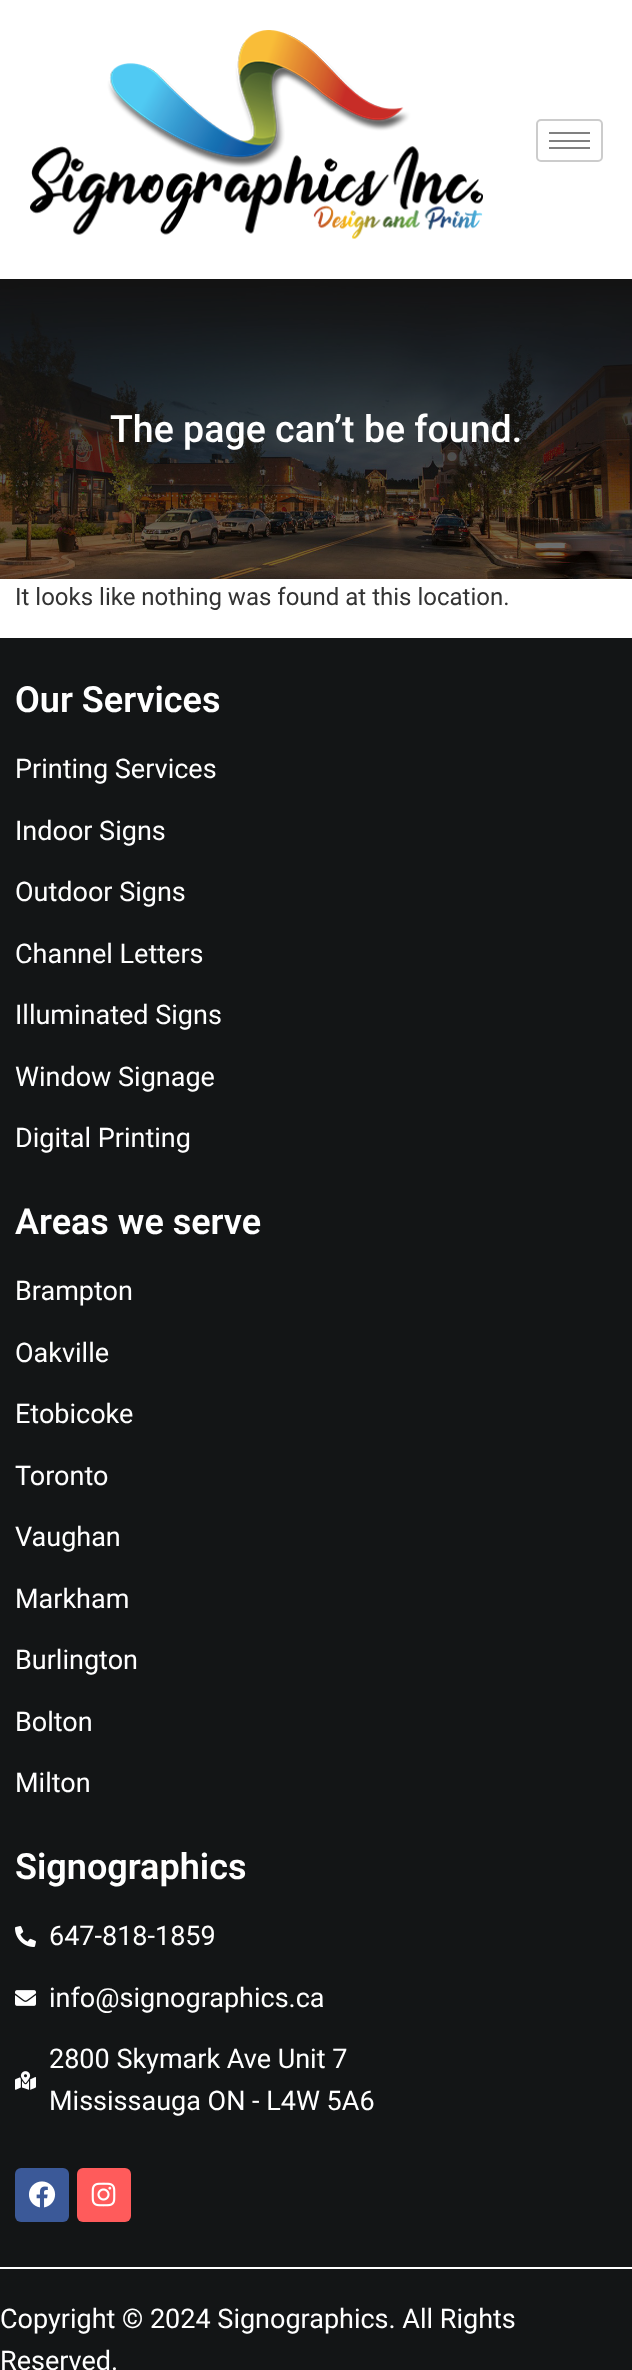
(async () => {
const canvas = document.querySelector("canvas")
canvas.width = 632
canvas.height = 2370
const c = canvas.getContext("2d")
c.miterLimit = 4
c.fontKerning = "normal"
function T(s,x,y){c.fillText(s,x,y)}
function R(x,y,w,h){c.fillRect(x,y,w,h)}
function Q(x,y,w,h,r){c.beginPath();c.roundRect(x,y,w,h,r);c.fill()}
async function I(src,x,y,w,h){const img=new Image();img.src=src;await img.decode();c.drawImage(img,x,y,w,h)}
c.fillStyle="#fff"
R(0,0,632,2370)
await I("1.png",30,30,453,209)
c.beginPath()
c.roundRect(537,120,65,41,4)
c.strokeStyle="#ccc"
c.lineWidth=2
c.stroke()
c.fillStyle="#808080"
R(549,132,41,2)
R(549,140,41,2)
R(549,147,41,2)
await I("2.png",0,279,632,300)
c.font="500 37.5px Roboto"
c.fillStyle="#fff"
T("The page can’t be found.",110,442)
c.font="24px Roboto"
c.fillStyle="#333"
T("It looks like nothing was found at this location.",15,605)
c.fillStyle="#131516"
R(0,638,632,1629)
c.font="600 36px Roboto"
c.fillStyle="#fff"
T("Our Services",15,712)
c.font="27px Roboto"
T("Printing Services",15,778)
T("Indoor Signs",15,840)
T("Outdoor Signs",15,901)
T("Channel Letters",15,963)
T("Illuminated Signs",15,1024)
T("Window Signage",15,1086)
T("Digital Printing",15,1147)
c.font="600 36px Roboto"
T("Areas we serve",15,1234)
c.font="27px Roboto"
T("Brampton",15,1300)
T("Oakville",15,1362)
T("Etobicoke",15,1423)
T("Toronto",15,1485)
T("Vaughan",15,1546)
T("Markham",15,1608)
T("Burlington",15,1669)
T("Bolton",15,1731)
T("Milton",15,1792)
c.font="600 36px Roboto"
T("Signographics",15,1879)
await I("3.png",15,1926,21,21)
c.font="27px Roboto"
T("647-818-1859",49,1945)
await I("4.png",15,1990,21,16)
T("info@signographics.ca",49,2007)
await I("5.png",15,2071,21,19)
T("2800 Skymark Ave Unit 7",49,2068)
T("Mississauga ON - L4W 5A6",49,2110)
c.fillStyle="#3b5998"
Q(15,2168,54,54,6)
await I("6.png",29,2181,27,27)
c.fillStyle="#ff5b5b"
Q(77,2168,54,54,6)
await I("7.png",91,2182,25,25)
c.fillStyle="#131516"
R(0,2269,632,101)
c.fillStyle="#fff"
T("Copyright © 2024 Signographics. All Rights",0,2328)
T("Reserved.",0,2370)
})()
